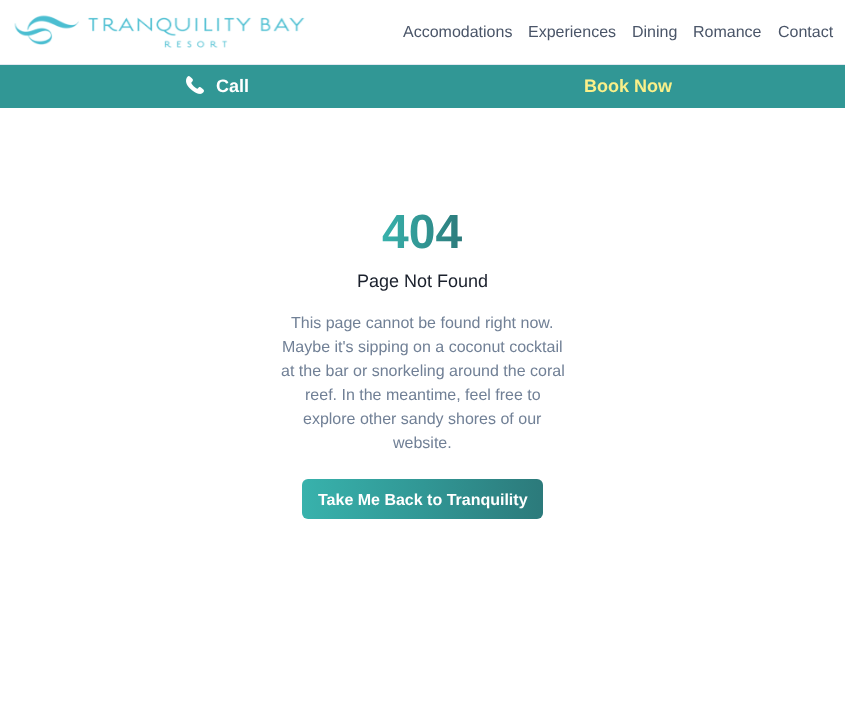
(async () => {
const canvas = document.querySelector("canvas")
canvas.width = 845
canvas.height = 727
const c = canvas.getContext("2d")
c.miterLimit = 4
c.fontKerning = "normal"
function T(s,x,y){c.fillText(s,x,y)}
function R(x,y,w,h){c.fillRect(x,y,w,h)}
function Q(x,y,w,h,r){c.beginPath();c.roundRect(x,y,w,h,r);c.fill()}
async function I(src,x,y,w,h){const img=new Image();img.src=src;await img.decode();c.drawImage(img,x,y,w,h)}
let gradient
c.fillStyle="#fff"
R(0,0,845,727)
c.fillStyle="#e2e8f0"
R(0,64,845,1)
await I("1.png",14,15,291,33)
c.font="16px Liberation Sans"
c.fillStyle="#4a5568"
T("Accomodations",403,37)
T("Experiences",528,37)
T("Dining",632,37)
T("Romance",693,37)
T("Contact",778,37)
c.fillStyle="#319795"
R(0,65,845,43)
await I("2.png",186,76,18,18)
c.font="bold 18px Liberation Sans"
c.fillStyle="#fff"
T("Call",216,92)
c.fillStyle="#faf089"
T("Book Now",584,92)
c.font="bold 48px Liberation Sans"
gradient = c.createLinearGradient(382,232,463,232)
gradient.addColorStop(0,"#38b2ac")
gradient.addColorStop(1,"#2c7a7b")
c.fillStyle = gradient
T("404",382,248)
c.font="18px Liberation Sans"
c.fillStyle="#1a202c"
T("Page Not Found",357,287)
c.font="16px Liberation Sans"
c.fillStyle="#718096"
T("This page cannot be found right now.",291,328)
T("Maybe it's sipping on a coconut cocktail",282,352)
T("at the bar or snorkeling around the coral",281,376)
T("reef. In the meantime, feel free to",305,400)
T("explore other sandy shores of our",303,424)
T("website.",393,448)
gradient = c.createLinearGradient(302,499,543,499)
gradient.addColorStop(0,"#38b2ac")
gradient.addColorStop(.5,"#319795")
gradient.addColorStop(1,"#2c7a7b")
c.fillStyle = gradient
Q(302,479,241,40,6)
c.font="bold 16px Liberation Sans"
c.fillStyle="#fff"
T("Take Me Back to Tranquility",318,505)
})()
